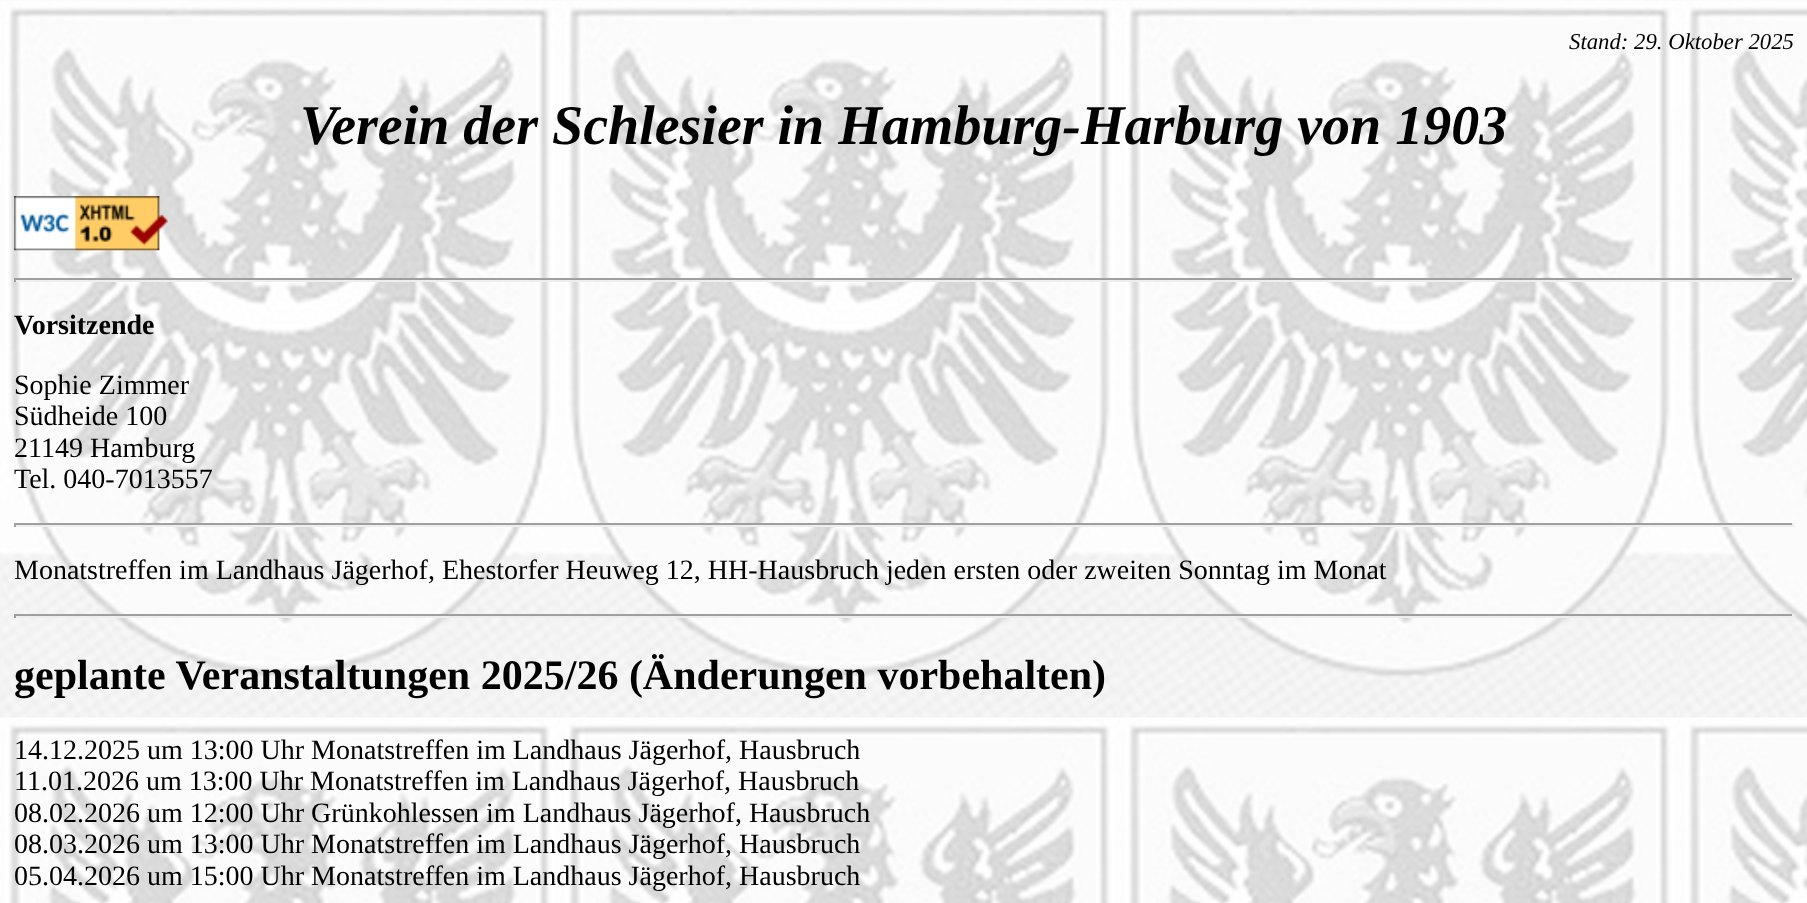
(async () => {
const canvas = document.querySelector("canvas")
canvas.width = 1807
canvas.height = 903
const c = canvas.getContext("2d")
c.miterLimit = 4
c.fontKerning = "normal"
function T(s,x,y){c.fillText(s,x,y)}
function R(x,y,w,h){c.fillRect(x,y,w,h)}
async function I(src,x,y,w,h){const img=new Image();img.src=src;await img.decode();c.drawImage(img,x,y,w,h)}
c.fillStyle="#fff"
R(0,0,1807,903)
await I("1.png",0,0,1807,903)
c.font="italic 22.75px Liberation Serif"
c.fillStyle="#000"
T("Stand: 29. Oktober 2025",1569,49)
c.font="italic bold 56px Liberation Serif"
T("Verein der Schlesier in Hamburg-Harburg von 1903",300,144)
await I("2.png",14,196,154,55)
c.fillStyle="#9f9f9f"
R(14,278,1780,2)
c.fillStyle="#eee"
R(1792,278,2,4)
R(14,280,1780,2)
c.fillStyle="#9f9f9f"
R(14,278,2,4)
c.font="bold 28px Liberation Serif"
c.fillStyle="#000"
T("Vorsitzende",14,334)
c.font="28px Liberation Serif"
T("Sophie Zimmer",14,394)
T("Südheide 100",14,425)
T("21149 Hamburg",14,457)
T("Tel. 040-7013557",14,488)
c.fillStyle="#9f9f9f"
R(14,523,1780,2)
c.fillStyle="#eee"
R(1792,523,2,4)
R(14,525,1780,2)
c.fillStyle="#9f9f9f"
R(14,523,2,4)
c.fillStyle="#000"
T("Monatstreffen im Landhaus Jägerhof, Ehestorfer Heuweg 12, HH-Hausbruch jeden ersten oder zweiten Sonntag im Monat",14,579)
c.fillStyle="#9f9f9f"
R(14,614,1780,2)
c.fillStyle="#eee"
R(1792,614,2,4)
R(14,616,1780,2)
c.fillStyle="#9f9f9f"
R(14,614,2,4)
c.font="bold 42px Liberation Serif"
c.fillStyle="#000"
T("geplante Veranstaltungen 2025/26 (Änderungen vorbehalten)",14,689)
c.font="28px Liberation Serif"
T("14.12.2025 um 13:00 Uhr Monatstreffen im Landhaus Jägerhof, Hausbruch",14,759)
T("11.01.2026 um 13:00 Uhr Monatstreffen im Landhaus Jägerhof, Hausbruch",14,790)
T("08.02.2026 um 12:00 Uhr Grünkohlessen im Landhaus Jägerhof, Hausbruch",14,822)
T("08.03.2026 um 13:00 Uhr Monatstreffen im Landhaus Jägerhof, Hausbruch",14,853)
T("05.04.2026 um 15:00 Uhr Monatstreffen im Landhaus Jägerhof, Hausbruch",14,885)
})()
